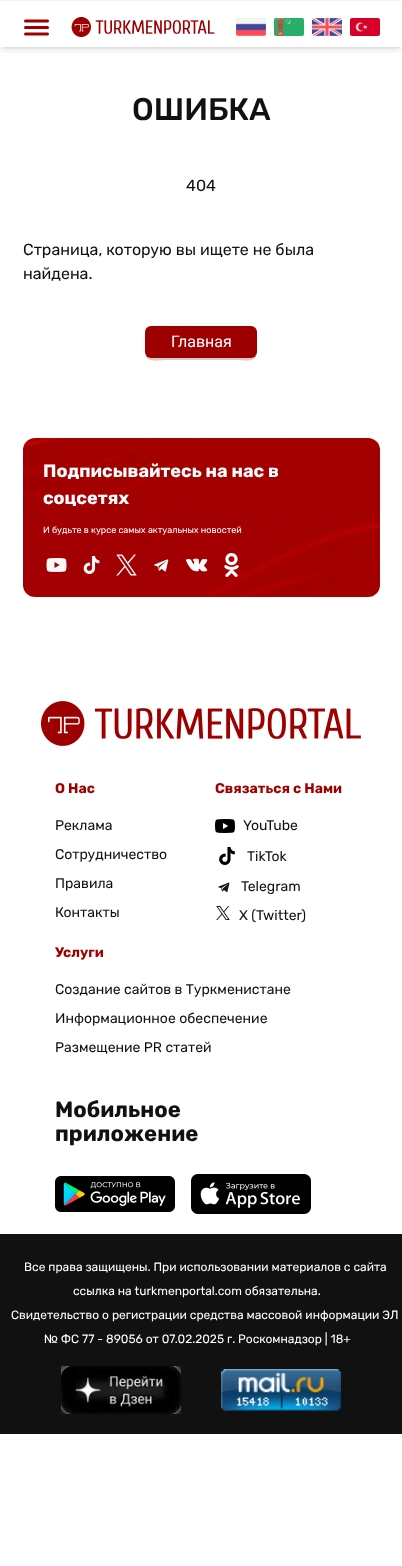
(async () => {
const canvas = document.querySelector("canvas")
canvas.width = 402
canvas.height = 1566
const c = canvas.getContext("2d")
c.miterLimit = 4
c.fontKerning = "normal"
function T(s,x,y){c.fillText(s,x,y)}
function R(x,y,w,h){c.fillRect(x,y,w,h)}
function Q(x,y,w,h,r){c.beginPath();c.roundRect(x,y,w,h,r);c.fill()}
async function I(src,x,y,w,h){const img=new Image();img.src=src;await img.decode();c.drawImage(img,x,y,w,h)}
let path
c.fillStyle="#fff"
R(0,0,402,1566)
c.fillStyle="#f3f3f3"
R(0,0,402,1)
c.save()
c.beginPath()
c.rect(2,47,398,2)
c.clip()
c.fillStyle="#0000001a"
c.filter="blur(2px)"
c.beginPath()
c.rect(2,5,398,42)
c.fill()
c.filter="none"
c.restore()
c.save()
c.beginPath()
c.rect(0,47,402,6)
c.clip()
c.fillStyle="#0000001a"
c.filter="blur(3px)"
c.beginPath()
c.rect(1,6,400,44)
c.fill()
c.filter="none"
c.restore()
path = new Path2D("M25.5 34h22m-22-6.5h22m-22-6.5h22")
c.strokeStyle="#9d0000"
c.lineWidth=3
c.lineCap="round"
c.lineJoin="round"
c.stroke(path)
await I("1.png",71,17,144,20)
await I("2.png",236,18,30,18)
await I("3.png",274,18,30,18)
await I("4.png",312,18,30,18)
await I("5.png",350,18,30,18)
c.font="500 31.25px Rubik"
c.fillStyle="#111"
T("ОШИБКА",132,120)
c.font="16px Rubik"
T("404",186,191)
T("Страница, которую вы ищете не была",23,255)
T("найдена.",23,279)
c.fillStyle="#decbc8"
path = new Path2D("M145 352c0 12 13 8 23 8h66c10 0 23 4 23-8c0 3-3 6-6 6h-100c-3 0-6-3-6-6z")
c.fill(path)
c.fillStyle="#9e0000"
Q(145,326,112,32,6)
c.font="16px Roboto"
c.fillStyle="#fff"
T("Главная",171,347)
await I("6.png",23,438,357,159)
c.font="bold 18px Rubik"
T("Подписывайтесь на нас в",43,477)
T("соцсетях",43,504)
c.font="9px Rubik"
T("И будьте в курсе самых актуальных новостей",43,533)
await I("7.png",46,558,21,14)
await I("8.png",83,556,17,18)
await I("9.png",116,554,21,22)
await I("10.png",154,559,15,13)
await I("11.png",186,558,22,14)
await I("12.png",224,553,15,24)
await I("13.png",41,701,320,45)
c.font="bold 14px Rubik"
c.fillStyle="#9e0000"
T("О Нас",55,793)
c.font="14px Rubik"
c.fillStyle="#111"
T("Реклама",55,830)
T("Сотрудничество",55,859)
T("Правила",55,888)
T("Контакты",55,917)
c.font="bold 14px Rubik"
c.fillStyle="#9e0000"
T("Связаться с Нами",215,793)
await I("14.png",215,819,20,14)
c.font="14px Rubik"
c.fillStyle="#111"
T("YouTube",243,830)
await I("15.png",219,847,16,18)
T("TikTok",247,861)
await I("16.png",218,882,12,11)
T("Telegram",241,891)
await I("17.png",216,906,14,14)
T("X (Twitter)",239,920)
c.font="bold 14px Rubik"
c.fillStyle="#9e0000"
T("Услуги",55,957)
c.font="14px Rubik"
c.fillStyle="#111"
T("Создание сайтов в Туркменистане",55,994)
T("Информационное обеспечение",55,1023)
T("Размещение PR статей",55,1052)
c.font="bold 22px Rubik"
T("Мобильное",55,1117)
T("приложение",55,1141)
await I("18.png",55,1176,120,36)
await I("19.png",191,1174,120,40)
R(0,1234,402,200)
c.font="12px Rubik"
c.fillStyle="#fff"
T("Все права защищены. При использовании материалов с сайта",24,1271)
T("ссылка на turkmenportal.com обязательна.",73,1295)
T("Свидетельство о регистрации средства массовой информации ЭЛ",11,1319)
T("№ ФС 77 - 89056 от 07.02.2025 г. Роскомнадзор | 18+",44,1343)
await I("20.png",61,1366,120,48)
await I("21.png",221,1369,120,42)
})()
